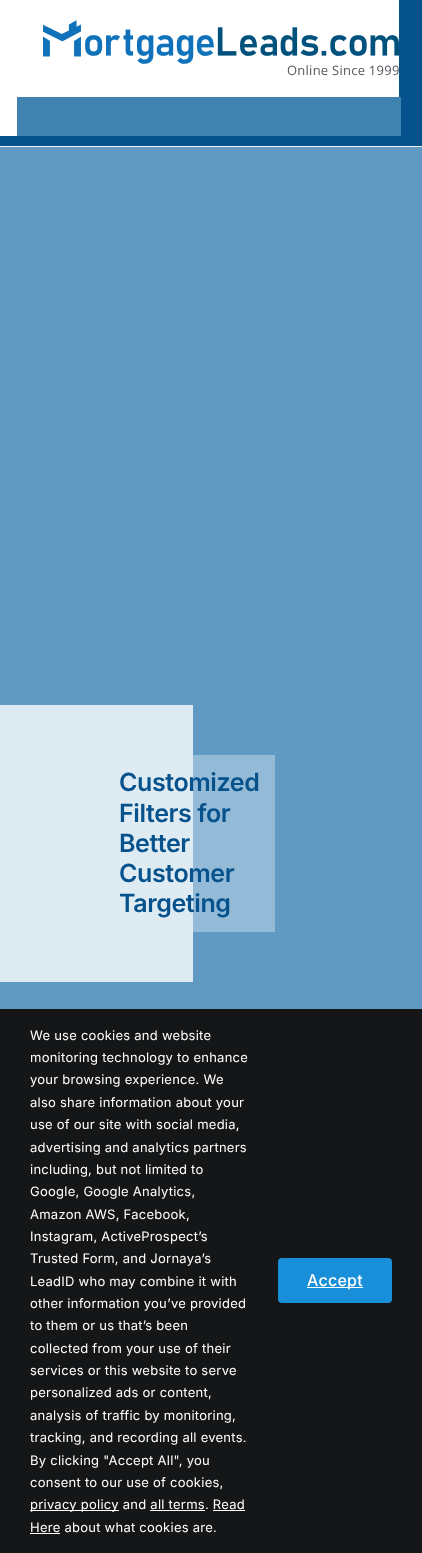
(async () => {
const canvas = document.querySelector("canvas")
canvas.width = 422
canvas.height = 1553
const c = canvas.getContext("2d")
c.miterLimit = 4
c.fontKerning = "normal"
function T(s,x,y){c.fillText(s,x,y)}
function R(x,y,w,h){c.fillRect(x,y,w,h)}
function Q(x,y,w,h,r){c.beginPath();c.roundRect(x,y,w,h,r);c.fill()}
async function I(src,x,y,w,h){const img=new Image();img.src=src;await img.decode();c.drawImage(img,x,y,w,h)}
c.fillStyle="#fff"
R(0,0,422,1553)
c.fillStyle="#06528c"
R(399,0,23,97)
await I("1.png",43,20,356,44)
c.letterSpacing="0.25px"
c.font="13px Open Sans"
c.fillStyle="#54595f"
T("Online Since 1999",287,75)
c.fillStyle="#06528c"
R(0,97,422,49)
c.fillStyle="#f1f1f1"
R(0,146,422,1)
c.fillStyle="#4083b0"
R(17,97,384,39)
c.fillStyle="#fff"
R(0,97,17,39)
c.fillStyle="#609ac2"
R(0,147,422,862)
c.fillStyle="#93bad6"
R(193,755,82,177)
c.fillStyle="#dfebf3"
R(0,705,193,277)
c.letterSpacing="-0.4px"
c.font="600 25px Inter"
c.fillStyle="#06528c"
T("Customized",119,791)
T("Filters for",119,822)
T("Better",119,852)
T("Customer",119,882)
T("Targeting",119,912)
c.fillStyle="#141617"
R(0,1009,422,544)
c.letterSpacing="0.25px"
c.font="13px Inter"
c.fillStyle="#fff"
T("We use cookies and website",30,1040)
T("monitoring technology to enhance",30,1062)
T("your browsing experience. We",30,1084)
T("also share information about your",30,1107)
T("use of our site with social media,",30,1129)
T("advertising and analytics partners",30,1152)
T("including, but not limited to",30,1174)
T("Google, Google Analytics,",30,1196)
T("Amazon AWS, Facebook,",30,1219)
T("Instagram, ActiveProspect’s",30,1241)
T("Trusted Form, and Jornaya’s",30,1263)
T("LeadID who may combine it with",30,1286)
T("other information you’ve provided",30,1308)
T("to them or us that’s been",30,1330)
T("collected from your use of their",30,1353)
T("services or this website to serve",30,1375)
T("personalized ads or content,",30,1397)
T("analysis of traffic by monitoring,",30,1420)
T("tracking, and recording all events.",30,1442)
T("By clicking \"Accept All\", you",30,1465)
T("consent to our use of cookies,",30,1487)
R(30,1510,89,1)
T("privacy policy and all terms. Read",30,1509)
R(150,1510,55,1)
T("Here about what cookies are.",30,1532)
R(213,1510,32,1)
R(30,1533,30,1)
c.fillStyle="#198fd9"
Q(278,1258,114,45,4)
c.fillStyle="#fff"
R(307,1287,56,1)
c.font="500 16px Inter"
T("Accept",307,1286)
})()
